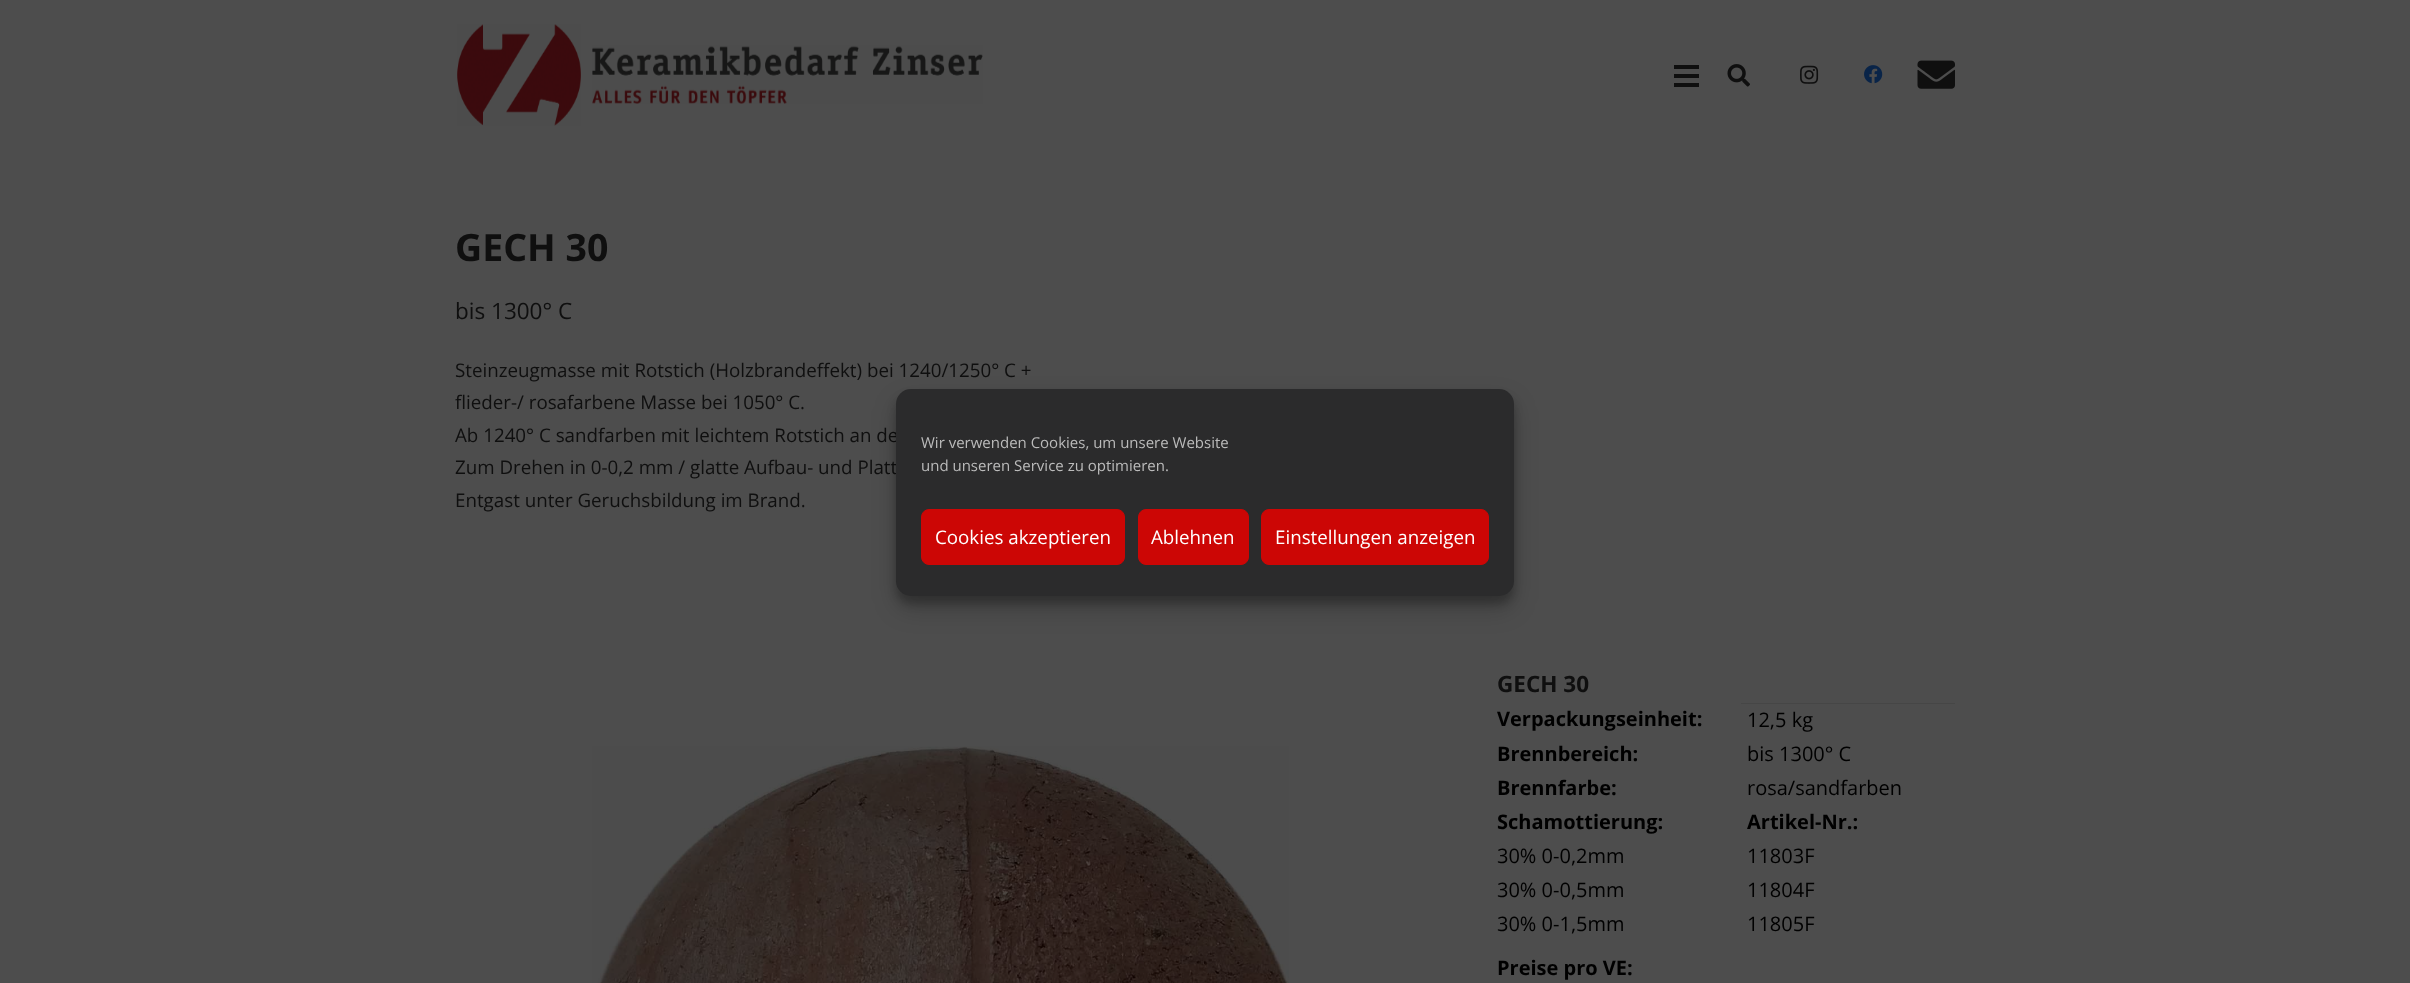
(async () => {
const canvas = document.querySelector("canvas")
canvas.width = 2410
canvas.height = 983
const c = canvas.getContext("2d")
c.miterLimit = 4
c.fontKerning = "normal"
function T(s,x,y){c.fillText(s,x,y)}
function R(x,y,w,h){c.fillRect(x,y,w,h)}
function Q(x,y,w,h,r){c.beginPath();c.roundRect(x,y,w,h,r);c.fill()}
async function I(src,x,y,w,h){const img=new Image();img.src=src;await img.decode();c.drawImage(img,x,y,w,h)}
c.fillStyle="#4d4d4d"
R(0,0,2410,983)
await I("1.png",457,24,124,102)
await I("2.png",592,45,391,59)
c.fillStyle="#0f0f0f"
R(1674,74,25,4)
R(1674,65,25,4)
R(1674,83,25,4)
await I("3.png",1727,64,23,23)
await I("4.png",1800,65,19,19)
await I("5.png",1864,65,19,19)
await I("6.png",1917,60,38,29)
c.font="bold 37.5px Open Sans"
T("GECH 30",455,261)
c.font="22.5px Open Sans"
T("bis 1300° C",455,319)
c.font="18.75px Open Sans"
T("Steinzeugmasse mit Rotstich (Holzbrandeffekt) bei 1240/1250° C +",455,377)
T("flieder-/ rosafarbene Masse bei 1050° C.",455,409)
T("Ab 1240° C sandfarben mit leichtem Rotstich an de",455,442)
T("Zum Drehen in 0-0,2 mm / glatte Aufbau- und Platt",455,474)
T("Entgast unter Geruchsbildung im Brand.",455,507)
await I("7.png",592,746,697,237)
c.font="bold 22.5px Open Sans"
T("GECH 30",1497,692)
c.fillStyle="#464646"
R(1741,703,214,1)
c.font="bold 20px Open Sans"
c.fillStyle="#000"
T("Verpackungseinheit:",1497,726)
c.font="20px Open Sans"
T("12,5 kg",1747,727)
c.font="bold 20px Open Sans"
T("Brennbereich:",1497,761)
c.font="20px Open Sans"
T("bis 1300° C",1747,761)
c.font="bold 20px Open Sans"
T("Brennfarbe:",1497,795)
c.font="20px Open Sans"
T("rosa/sandfarben",1747,795)
c.font="bold 20px Open Sans"
T("Schamottierung:",1497,829)
T("Artikel-Nr.:",1747,829)
c.font="20px Open Sans"
T("30% 0-0,2mm",1497,863)
T("11803F",1747,863)
T("30% 0-0,5mm",1497,897)
T("11804F",1747,897)
T("30% 0-1,5mm",1497,931)
T("11805F",1747,931)
c.font="bold 20px Open Sans"
T("Preise pro VE:",1497,975)
c.fillStyle="#0000003b"
c.filter="blur(4px)"
c.beginPath()
c.roundRect(896,396,618,208,15)
c.fill()
c.filter="none"
c.fillStyle="#00000030"
c.filter="blur(12.5px)"
c.beginPath()
c.roundRect(896,401,618,208,15)
c.fill()
c.filter="none"
c.fillStyle="#2b2b2c"
Q(896,389,618,207,15)
c.font="15px Open Sans"
c.fillStyle="#bbb"
T("Wir verwenden Cookies, um unsere Website",921,448)
T("und unseren Service zu optimieren.",921,471)
c.fillStyle="#cc0605"
c.beginPath()
c.roundRect(921.5,509.5,203,55,7.5)
c.fill()
c.strokeStyle="#cc0605"
c.stroke()
c.font="18.75px Open Sans"
c.fillStyle="#fff"
T("Cookies akzeptieren",935,544)
c.fillStyle="#cc0605"
c.beginPath()
c.roundRect(1138.5,509.5,110,55,7.5)
c.fill()
c.stroke()
c.fillStyle="#fff"
T("Ablehnen",1151,544)
c.fillStyle="#cc0605"
c.beginPath()
c.roundRect(1261.5,509.5,227,55,7.5)
c.fill()
c.stroke()
c.fillStyle="#fff"
T("Einstellungen anzeigen",1275,544)
})()
